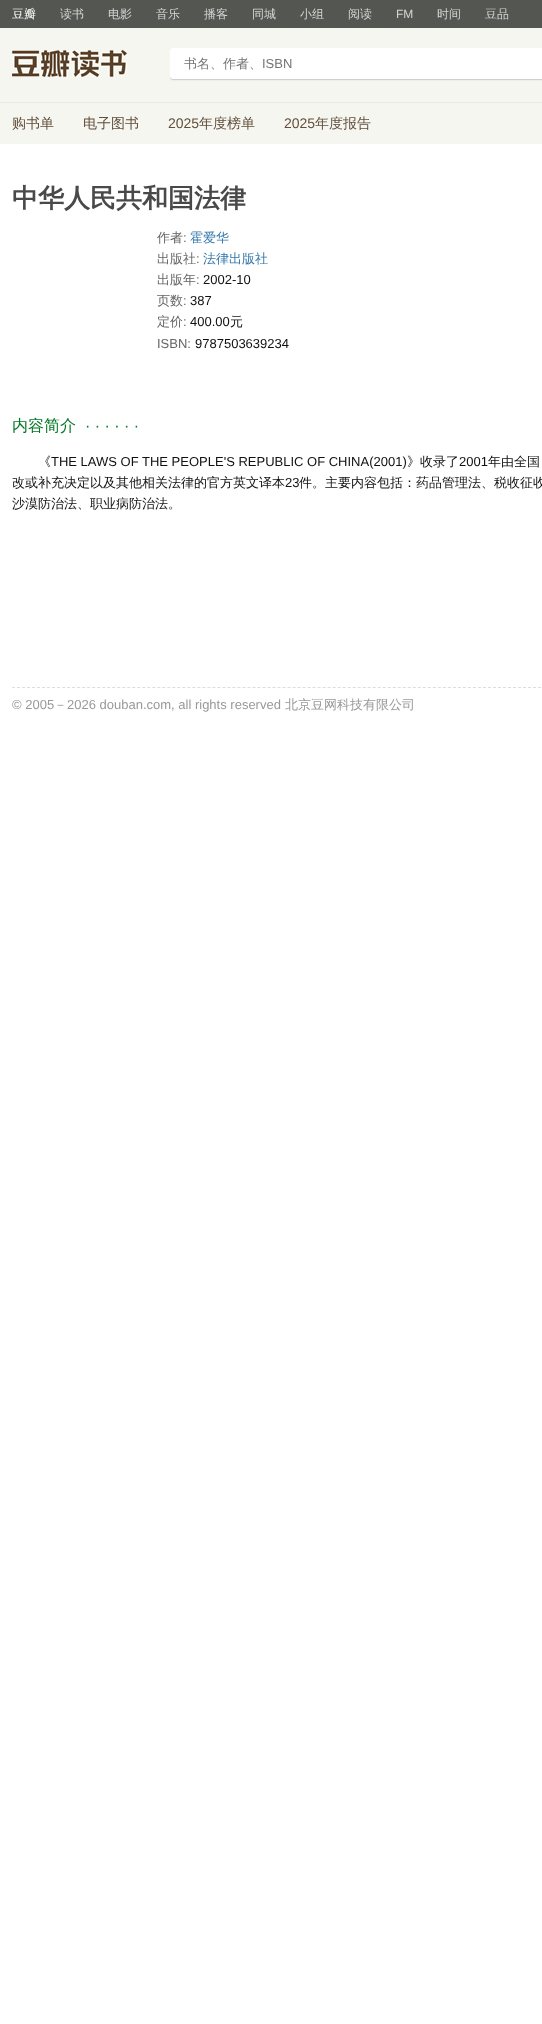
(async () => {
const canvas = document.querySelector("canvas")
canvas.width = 542
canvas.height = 2024
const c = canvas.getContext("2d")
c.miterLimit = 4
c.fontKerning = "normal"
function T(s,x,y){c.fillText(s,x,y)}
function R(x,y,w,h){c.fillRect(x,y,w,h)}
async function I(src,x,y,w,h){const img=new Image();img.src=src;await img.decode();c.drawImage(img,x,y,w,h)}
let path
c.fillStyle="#fff"
R(0,0,542,2024)
c.fillStyle="#545652"
R(0,0,542,28)
c.font="500 12px WenQuanYi Zen Hei"
c.fillStyle="#fff"
T("豆瓣",12,18)
c.fillStyle="#d5d5d5"
T("读书",60,18)
T("电影",108,18)
T("音乐",156,18)
T("播客",204,18)
T("同城",252,18)
T("小组",300,18)
T("阅读",348,18)
c.font="12px Liberation Sans"
T("FM",396,18)
c.font="500 12px WenQuanYi Zen Hei"
T("时间",437,18)
T("豆品",485,18)
c.fillStyle="#f6f6f1"
R(0,28,542,116)
c.fillStyle="#e9e9e2"
R(0,102,542,1)
await I("1.png",12,50,115,27)
await I("2.png",170,48,372,33)
c.font="500 13px WenQuanYi Zen Hei"
c.fillStyle="#757575"
T("书名、作者、",184,68)
c.font="13px Liberation Sans"
T("ISBN",262,68)
c.font="500 14px WenQuanYi Zen Hei"
c.fillStyle="#614e3c"
T("购书单",12,128)
T("电子图书",83,128)
c.font="14px Liberation Sans"
T("2025",168,128)
c.font="500 14px WenQuanYi Zen Hei"
T("年度榜单",199,128)
c.font="14px Liberation Sans"
T("2025",284,128)
c.font="500 14px WenQuanYi Zen Hei"
T("年度报告",315,128)
c.font="bold 26px WenQuanYi Zen Hei"
c.fillStyle="#494949"
T("中华人民共和国法律",12,207)
c.font="500 13px WenQuanYi Zen Hei"
c.fillStyle="#666"
T("作者",157,242)
c.font="13px Liberation Sans"
T(":",183,242)
c.font="500 13px WenQuanYi Zen Hei"
c.fillStyle="#37a"
T("霍爱华",190,242)
c.fillStyle="#666"
T("出版社",157,263)
c.font="13px Liberation Sans"
T(":",196,263)
c.font="500 13px WenQuanYi Zen Hei"
c.fillStyle="#37a"
T("法律出版社",203,263)
c.fillStyle="#666"
T("出版年",157,284)
c.font="13px Liberation Sans"
T(":",196,284)
c.fillStyle="#111"
T("2002-10",203,284)
c.font="500 13px WenQuanYi Zen Hei"
c.fillStyle="#666"
T("页数",157,305)
c.font="13px Liberation Sans"
T(":",183,305)
c.fillStyle="#111"
T("387",190,305)
c.font="500 13px WenQuanYi Zen Hei"
c.fillStyle="#666"
T("定价",157,326)
c.font="13px Liberation Sans"
T(":",183,326)
c.fillStyle="#111"
T("400.00",190,326)
c.font="500 13px WenQuanYi Zen Hei"
T("元",230,326)
c.font="13px Liberation Sans"
c.fillStyle="#666"
T("ISBN:",157,348)
c.fillStyle="#111"
T("9787503639234",195,348)
c.font="500 16px WenQuanYi Zen Hei"
c.fillStyle="#072"
T("内容简介",12,431)
c.font="16px Liberation Sans"
T("· · · · · ·",85,431)
c.font="500 13px WenQuanYi Zen Hei"
c.fillStyle="#111"
T("《",38,466)
c.font="13px Liberation Sans"
T("THE LAWS OF THE PEOPLE'S REPUBLIC OF CHINA(2001)",51,466)
c.font="500 13px WenQuanYi Zen Hei"
T("》收录了",407,466)
c.font="13px Liberation Sans"
T("2001",459,466)
c.font="500 13px WenQuanYi Zen Hei"
T("年由全国",488,466)
T("改或补充决定以及其他相关法律的官方英文译本",12,487)
c.font="13px Liberation Sans"
T("23",285,487)
c.font="500 13px WenQuanYi Zen Hei"
T("件。主要内容包括：药品管理法、税收征收",299,487)
T("沙漠防治法、职业病防治法。",12,508)
path = new Path2D("M12 687.5h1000")
c.strokeStyle="#ddd"
c.setLineDash([3,2.01])
c.stroke(path)
c.font="13px Liberation Sans"
c.fillStyle="#999"
T("© 2005",12,709)
c.font="500 13px WenQuanYi Zen Hei"
T("－",54,709)
c.font="13px Liberation Sans"
T("2026 douban.com, all rights reserved",67,709)
c.font="500 13px WenQuanYi Zen Hei"
T("北京豆网科技有限公司",285,709)
})()
